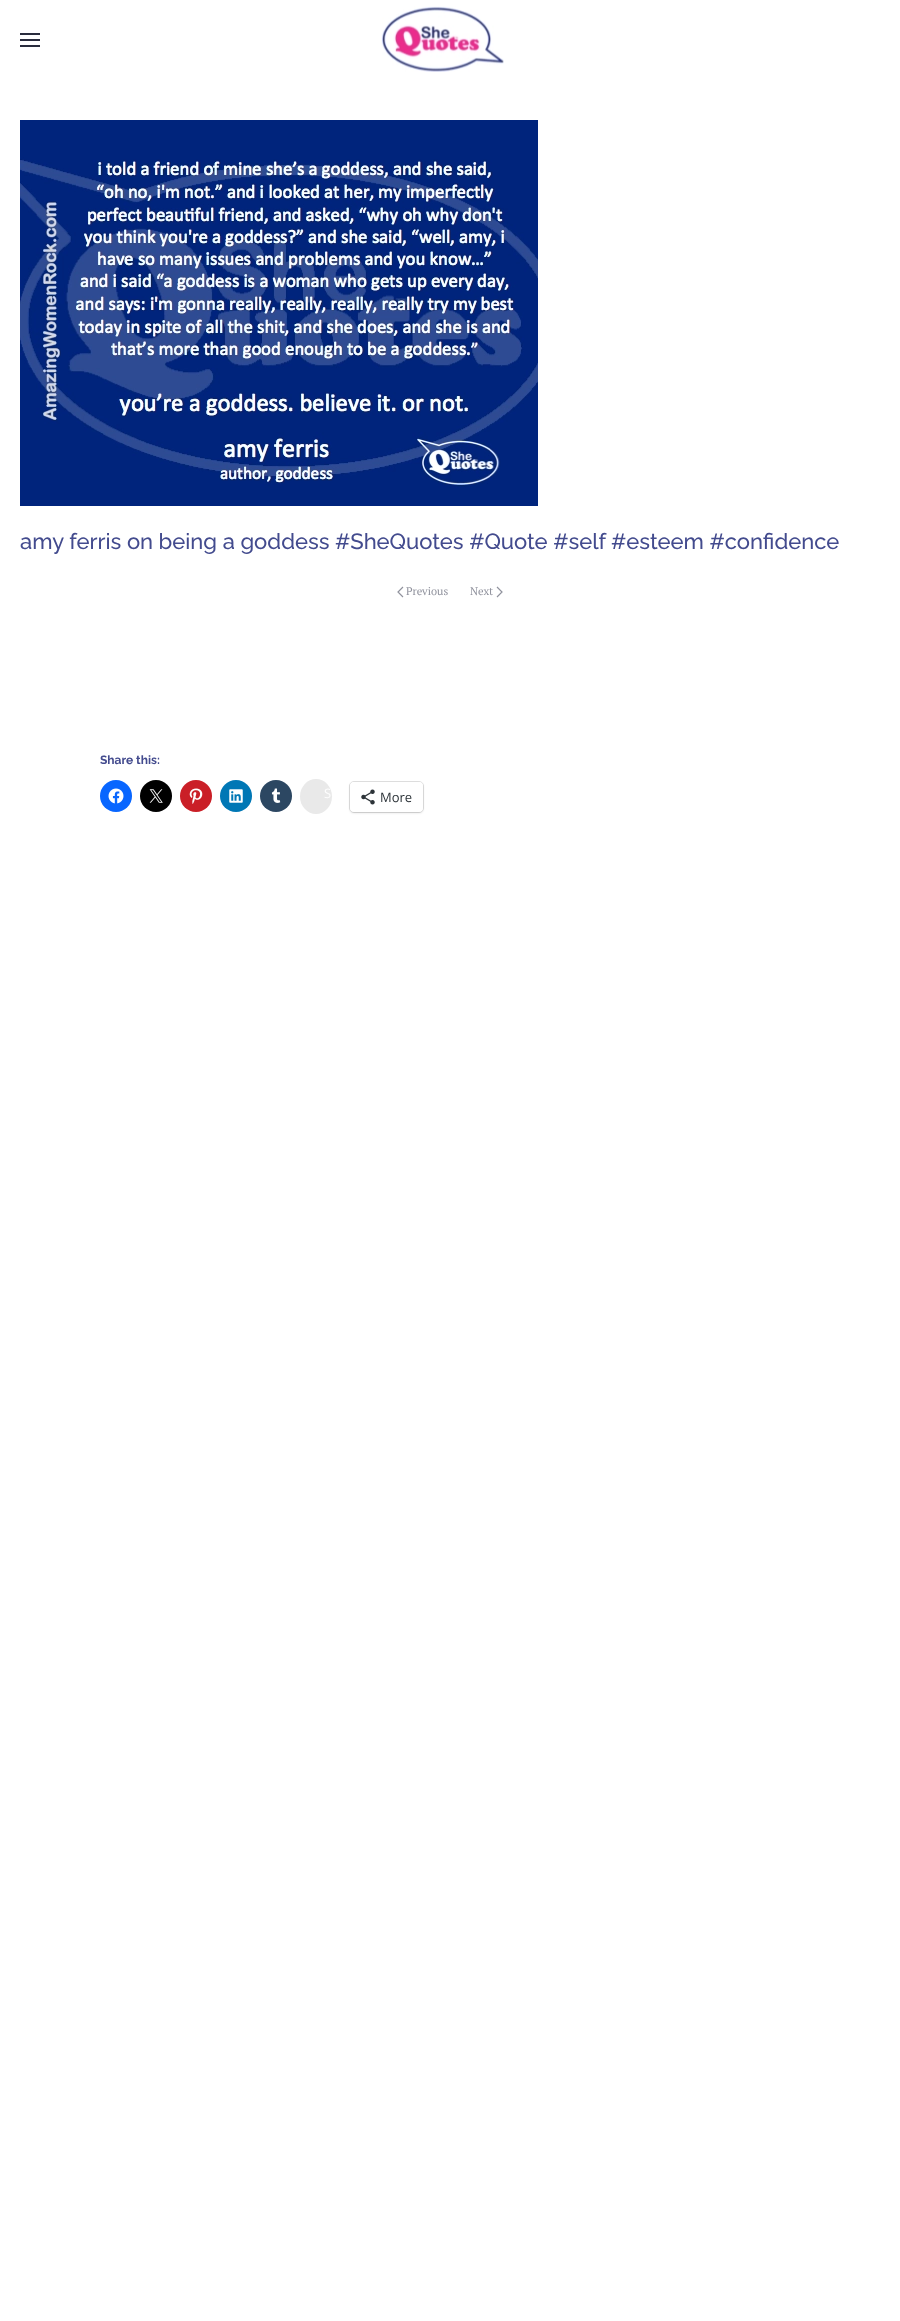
(async () => {
const canvas = document.querySelector("canvas")
canvas.width = 900
canvas.height = 2321
const c = canvas.getContext("2d")
c.miterLimit = 4
c.fontKerning = "normal"
function T(s,x,y){c.fillText(s,x,y)}
function R(x,y,w,h){c.fillRect(x,y,w,h)}
function Q(x,y,w,h,r){c.beginPath();c.roundRect(x,y,w,h,r);c.fill()}
async function I(src,x,y,w,h){const img=new Image();img.src=src;await img.decode();c.drawImage(img,x,y,w,h)}
let path
c.fillStyle="#fff"
R(0,0,900,2321)
c.fillStyle="#292c3d"
R(20,33,20,2)
R(20,39,20,2)
R(20,45,20,2)
await I("1.png",381,6,123,66)
await I("2.png",20,120,518,386)
c.font="100 22px 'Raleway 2'"
c.fillStyle="#434b8e"
T("amy ferris on being a goddess #SheQuotes #Quote #self #esteem #confidence",20,549)
path = new Path2D("M403 587l-5 5l5 5")
c.strokeStyle="#90929d"
c.lineWidth=1.2
c.stroke(path)
c.font="11px PT Serif"
c.fillStyle="#90929d"
T("Previous",406,595)
T("Next",470,595)
path = new Path2D("M497 587l5 5l-5 5")
c.stroke(path)
c.font="100 12px Raleway"
c.fillStyle="#434b8e"
T("Share this:",100,764)
c.fillStyle="#0866ff"
c.beginPath()
c.arc(116,796,16,0,7)
c.fill()
await I("3.png",108,788,16,16)
c.fillStyle="#000"
c.beginPath()
c.arc(156,796,16,0,7)
c.fill()
await I("4.png",149,789,14,14)
c.fillStyle="#ca1f27"
c.beginPath()
c.arc(196,796,16,0,7)
c.fill()
await I("5.png",189,788,14,16)
c.fillStyle="#0077b5"
c.beginPath()
c.arc(236,796,16,0,7)
c.fill()
await I("6.png",229,789,14,14)
c.fillStyle="#2c4762"
c.beginPath()
c.arc(276,796,16,0,7)
c.fill()
await I("7.png",271,788,10,15)
c.fillStyle="#e9e9e9"
c.beginPath()
c.ellipse(316,796.5,16,17.5,0,0,7)
c.fill()
c.font="13px Open Sans"
c.fillStyle="#fdfdfd"
T("S",324,798)
c.beginPath()
c.roundRect(349.5,781.5,74,31,4.5)
c.strokeStyle="#e0e0e0"
c.lineWidth=1
c.stroke()
c.fillStyle="#0000001f"
c.filter="blur(1px)"
c.beginPath()
c.roundRect(350,783,73,30,4)
c.fill()
c.filter="none"
c.fillStyle="#fff"
Q(350,782,73,30,4)
await I("8.png",361,789,14,16)
c.fillStyle="#2c3338"
T("More",380,802)
})()
